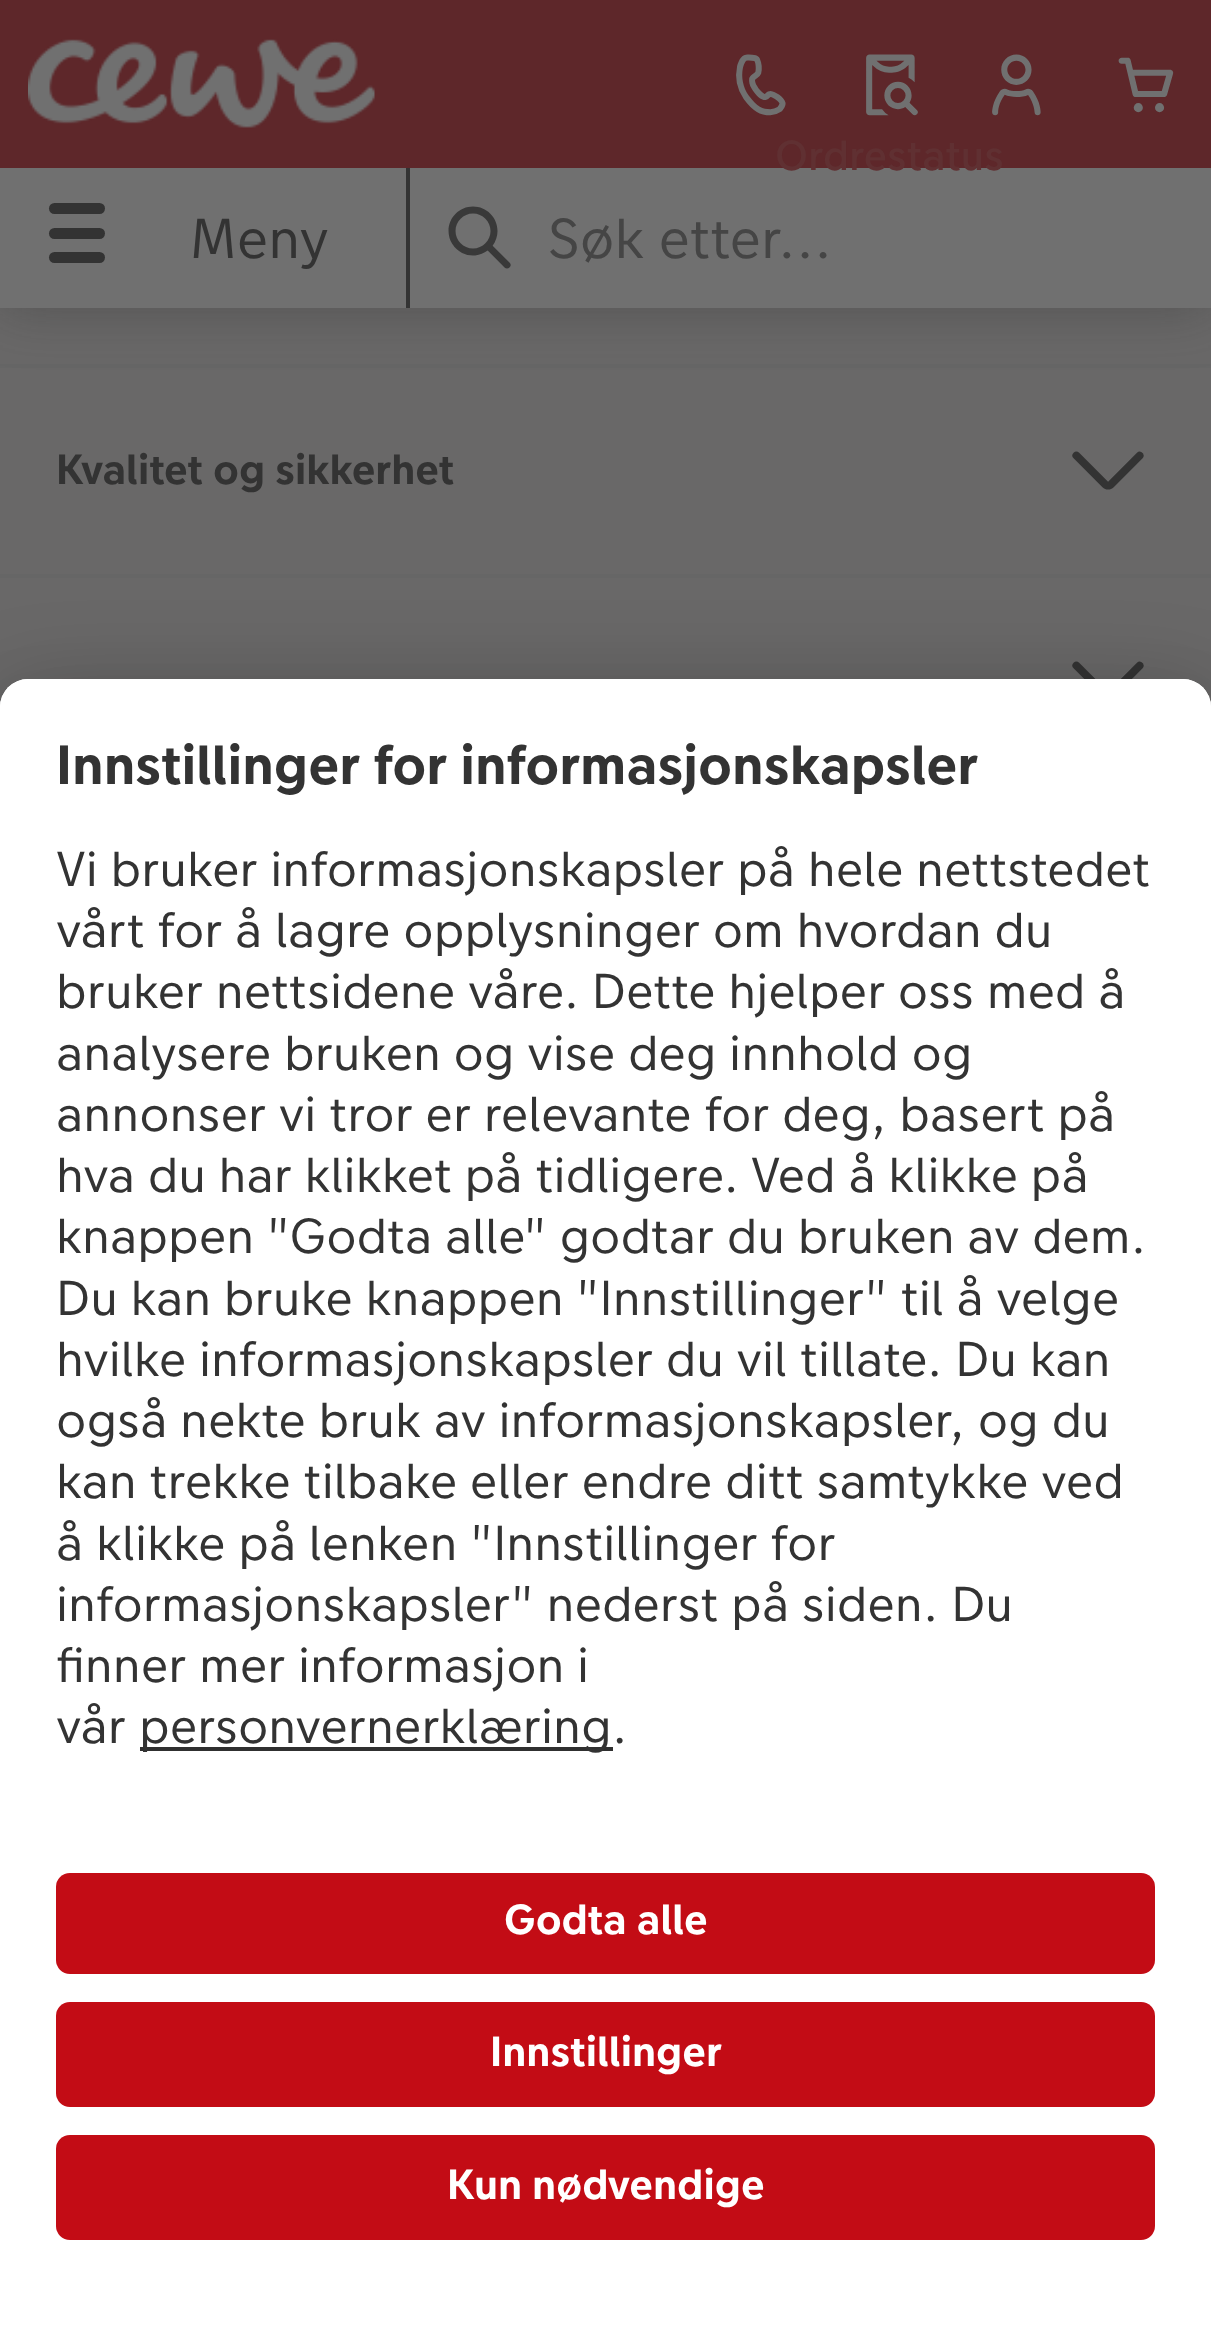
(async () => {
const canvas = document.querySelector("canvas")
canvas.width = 1211
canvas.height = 2338
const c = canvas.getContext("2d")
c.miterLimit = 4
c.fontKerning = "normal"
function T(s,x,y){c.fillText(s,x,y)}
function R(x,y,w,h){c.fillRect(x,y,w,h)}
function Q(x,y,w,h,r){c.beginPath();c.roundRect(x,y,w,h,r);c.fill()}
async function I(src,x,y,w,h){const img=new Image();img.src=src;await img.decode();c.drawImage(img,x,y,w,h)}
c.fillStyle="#696868"
R(0,0,1211,2338)
c.fillStyle="#666"
R(0,364,1211,4)
c.fillStyle="#24242454"
c.filter="blur(28px)"
c.beginPath()
c.rect(0,0,1211,308)
c.fill()
c.filter="none"
c.fillStyle="#5e272a"
R(0,0,1211,168)
await I("1.png",28,39,347,89)
await I("2.png",736,54,50,62)
await I("3.png",992,54,49,62)
await I("4.png",1118,57,56,56)
await I("5.png",866,54,52,62)
c.fillStyle="#707070"
R(410,168,801,140)
c.font="500 42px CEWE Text"
c.fillStyle="#603032"
T("Ordrestatus",775,170)
c.fillStyle="#333"
R(406,168,4,140)
c.fillStyle="#707070"
R(0,168,406,140)
c.fillStyle="#333"
Q(49,203,56,11,5.5)
Q(49,228,56,11,5.5)
Q(49,252,56,11,5.5)
c.font="56px CEWE Text"
T("Meny",189,258)
await I("6.png",448,206,63,63)
c.fillStyle="#454545"
T("Søk etter...",548,258)
c.font="bold 42px CEWE Text"
c.fillStyle="#333"
T("Kvalitet og sikkerhet",56,484)
await I("7.png",1072,451,72,39)
c.fillStyle="#666"
R(0,574,1211,4)
await I("8.png",1072,661,72,18)
c.fillStyle="#0000004d"
c.filter="blur(49px)"
c.beginPath()
c.roundRect(0,749,1211,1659,28)
c.fill()
c.filter="none"
c.fillStyle="#00000038"
c.filter="blur(45.5px)"
c.beginPath()
c.roundRect(0,697,1211,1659,28)
c.fill()
c.filter="none"
c.fillStyle="#fff"
c.beginPath()
c.roundRect(0,679,1211,1659,[28,28,0,0])
c.fill()
c.beginPath()
c.roundRect(0,679,1211,1152,[28,28,0,0])
c.fill()
c.font="bold 55.1px CEWE Text"
c.fillStyle="#333"
T("Innstillinger for informasjonskapsler",56,784)
c.font="49px CEWE Text"
T("Vi bruker informasjonskapsler på hele nettstedet",56,886)
T("vårt for å lagre opplysninger om hvordan du",56,947)
T("bruker nettsidene våre. Dette hjelper oss med å",56,1008)
T("analysere bruken og vise deg innhold og",56,1070)
T("annonser vi tror er relevante for deg, basert på",56,1131)
T("hva du har klikket på tidligere. Ved å klikke på",56,1192)
T("knappen \"Godta alle\" godtar du bruken av dem.",56,1253)
T("Du kan bruke knappen \"Innstillinger\" til å velge",56,1315)
T("hvilke informasjonskapsler du vil tillate. Du kan",56,1376)
T("også nekte bruk av informasjonskapsler, og du",56,1437)
T("kan trekke tilbake eller endre ditt samtykke ved",56,1498)
T("å klikke på lenken \"Innstillinger for",56,1560)
T("informasjonskapsler\" nederst på siden. Du",56,1621)
T("finner mer informasjon i",56,1682)
T("vår",56,1743)
c.fillStyle="#303030"
R(140,1747,473,4)
c.fillStyle="#333"
T("personvernerklæring.",139,1743)
c.fillStyle="#c30c15"
Q(56,1873,1099,101,14)
c.font="bold 42px CEWE Text"
c.fillStyle="#fff"
T("Godta alle",504,1934)
c.fillStyle="#c30c15"
Q(56,2002,1099,105,14)
c.fillStyle="#fff"
T("Innstillinger",490,2066)
c.fillStyle="#c30c15"
Q(56,2135,1099,105,14)
c.fillStyle="#fff"
T("Kun nødvendige",447,2199)
})()
